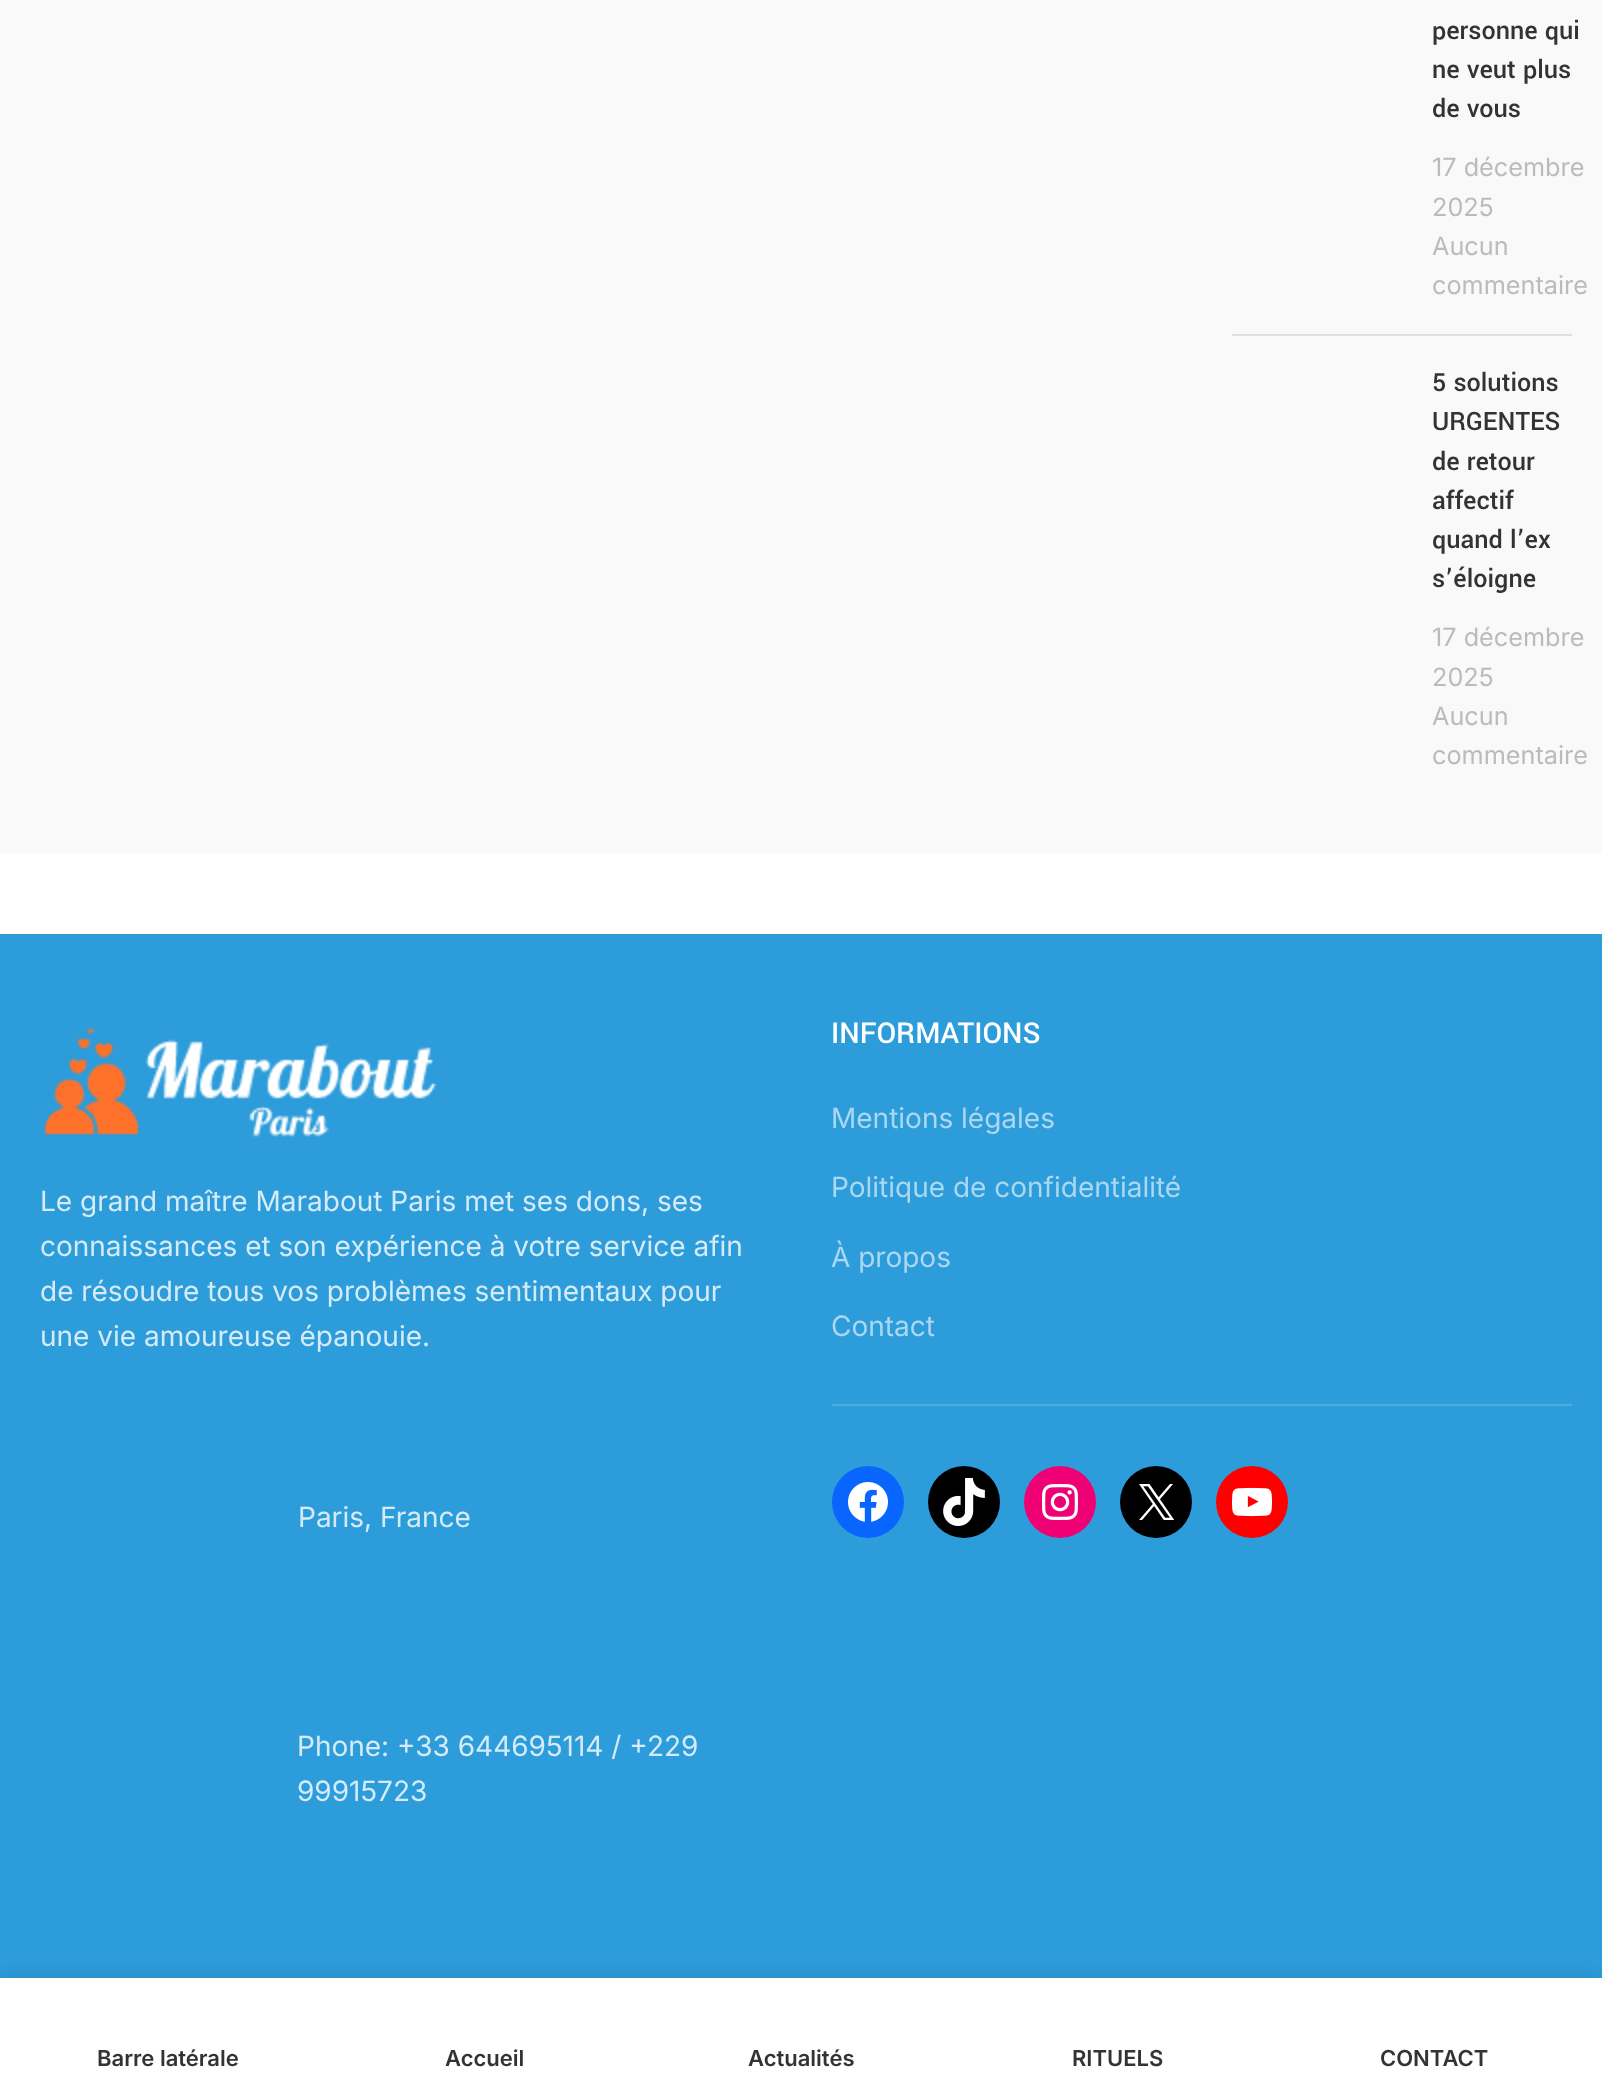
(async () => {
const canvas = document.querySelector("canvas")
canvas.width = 1602
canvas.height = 2087
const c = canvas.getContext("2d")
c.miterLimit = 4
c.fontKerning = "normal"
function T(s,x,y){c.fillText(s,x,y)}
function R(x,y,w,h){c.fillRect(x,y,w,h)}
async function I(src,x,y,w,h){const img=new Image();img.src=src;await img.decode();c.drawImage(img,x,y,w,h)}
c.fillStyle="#fff"
R(0,0,1602,2087)
c.fillStyle="#f9f9f9"
R(0,0,1602,854)
c.fillStyle="#dfdfdf"
R(1232,334,340,2)
c.font="500 28px Yantramanav"
c.fillStyle="#333"
T("personne qui",1432,39)
T("ne veut plus",1432,78)
T("de vous",1432,117)
c.font="25.25px Inter"
c.fillStyle="#bbb"
T("17 décembre",1432,176)
T("2025",1432,216)
T("Aucun",1432,255)
T("commentaire",1432,294)
c.font="500 28px Yantramanav"
c.fillStyle="#333"
T("5 solutions",1432,391)
T("URGENTES",1432,430)
T("de retour",1432,470)
T("affectif",1432,509)
T("quand l’ex",1432,548)
T("s’éloigne",1432,587)
c.font="25.25px Inter"
c.fillStyle="#bbb"
T("17 décembre",1432,646)
T("2025",1432,686)
T("Aucun",1432,725)
T("commentaire",1432,764)
c.fillStyle="#2d9cda"
R(0,934,1602,1044)
await I("1.png",43,1027,394,110)
c.font="28px Inter"
c.fillStyle="#d5ebf8"
T("Le grand maître Marabout Paris met ses dons, ses",40,1211)
T("connaissances et son expérience à votre service afin",40,1256)
T("de résoudre tous vos problèmes sentimentaux pour",40,1301)
T("une vie amoureuse épanouie.",40,1346)
T("Paris, France",298,1527)
T("Phone: +33 644695114 / +229",297,1756)
T("99915723",297,1801)
c.fillStyle="#4dabe0"
R(832,1404,740,2)
c.font="500 32px Yantramanav"
c.fillStyle="#fff"
T("INFORMATIONS",831,1043)
c.font="28px Inter"
c.fillStyle="#abd7f0"
T("Mentions légales",831,1128)
T("Politique de confidentialité",831,1197)
T("À propos",831,1267)
T("Contact",831,1336)
c.fillStyle="#0866ff"
c.beginPath()
c.arc(868,1502,36,0,7)
c.fill()
await I("2.png",848,1482,40,40)
c.fillStyle="#000"
c.beginPath()
c.arc(964,1502,36,0,7)
c.fill()
await I("3.png",943,1478,42,48)
c.fillStyle="#f00075"
c.beginPath()
c.arc(1060,1502,36,0,7)
c.fill()
await I("4.png",1042,1484,36,36)
c.fillStyle="#000"
c.beginPath()
c.arc(1156,1502,36,0,7)
c.fill()
await I("5.png",1139,1484,36,36)
c.fillStyle="#f00"
c.beginPath()
c.arc(1252,1502,36,0,7)
c.fill()
await I("6.png",1232,1487,40,30)
c.fillStyle="#0000001f"
c.filter="blur(9px)"
c.beginPath()
c.rect(0,1978,1602,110)
c.fill()
c.filter="none"
c.fillStyle="#fff"
R(0,1978,1602,109)
c.font="600 22px Inter"
c.fillStyle="#333"
T("Barre latérale",97,2066)
T("Accueil",445,2066)
T("Actualités",748,2066)
T("RITUELS",1072,2066)
T("CONTACT",1380,2066)
})()
